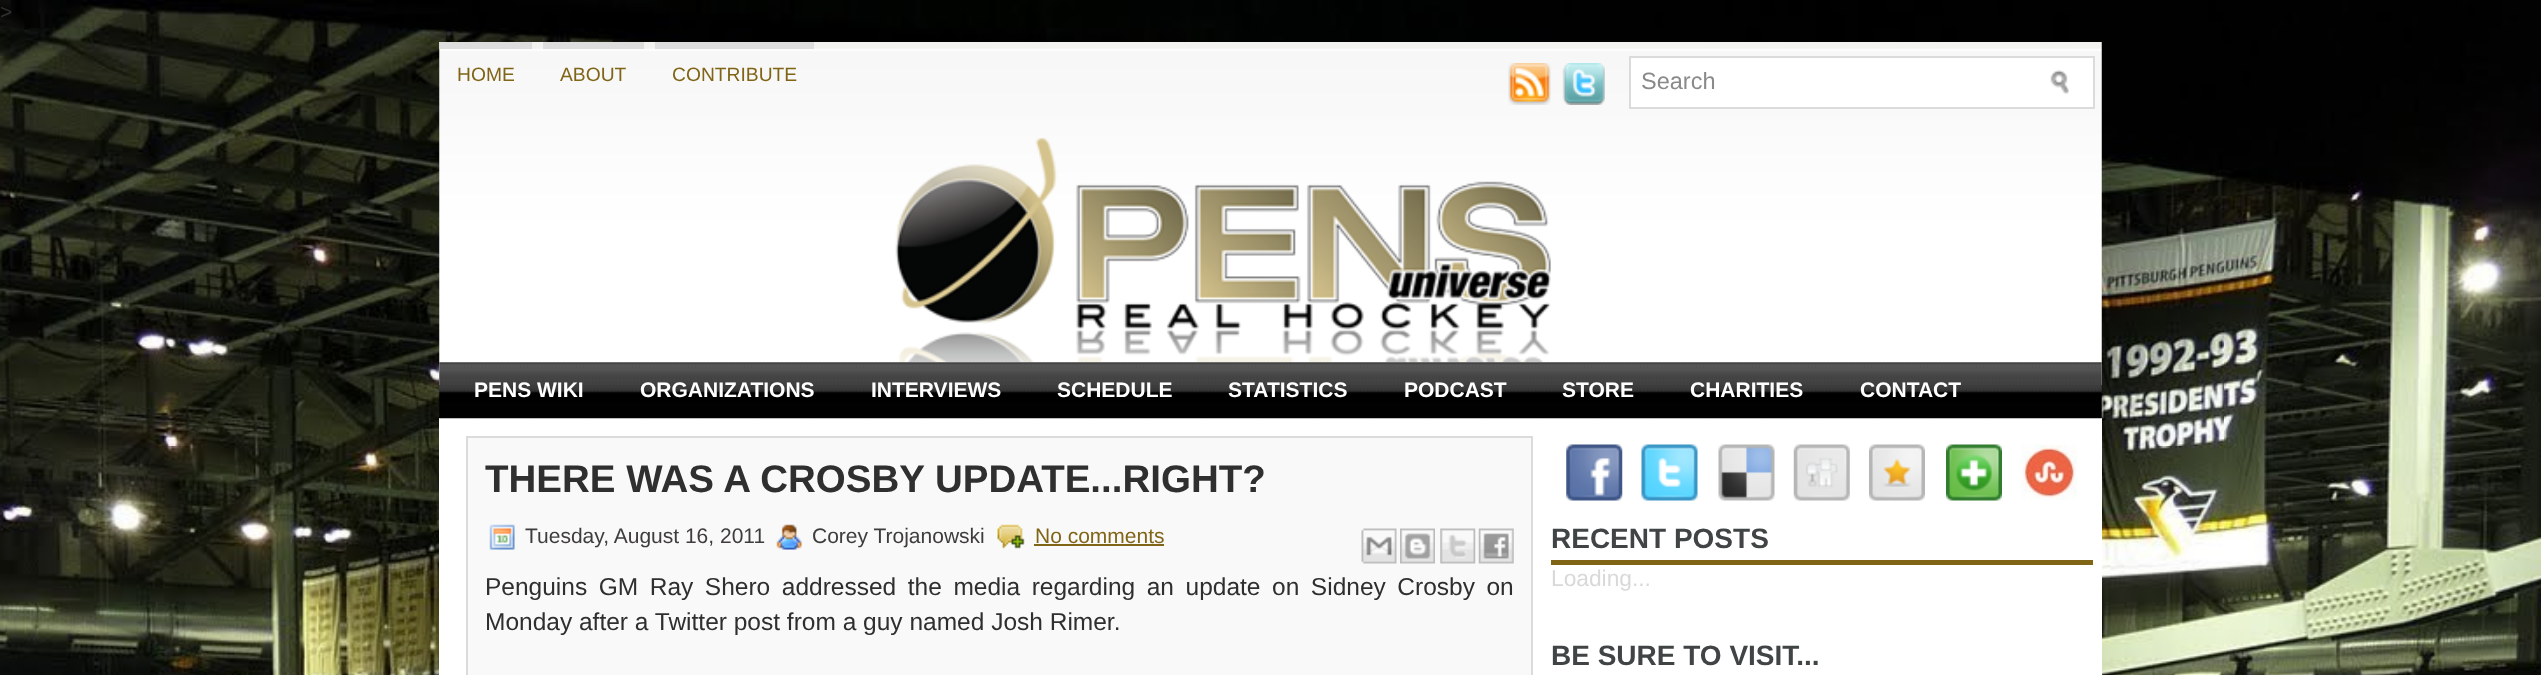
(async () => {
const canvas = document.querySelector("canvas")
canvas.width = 2541
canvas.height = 675
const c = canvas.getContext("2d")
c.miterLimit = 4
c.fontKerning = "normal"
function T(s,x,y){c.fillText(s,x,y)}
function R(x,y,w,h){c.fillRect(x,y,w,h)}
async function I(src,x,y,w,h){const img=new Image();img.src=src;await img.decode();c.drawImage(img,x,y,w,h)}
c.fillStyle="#fff"
R(0,0,2541,675)
await I("1.png",0,0,2541,675)
c.font="21px Liberation Sans"
c.fillStyle="#2f2f2f"
T(">",0,19)
await I("2.png",439,42,1663,343)
c.fillStyle="#ddd"
R(439,42,93,7)
c.font="19.25px Liberation Sans"
c.fillStyle="#806517"
T("HOME",457,81)
c.fillStyle="#ddd"
R(543,42,101,7)
c.fillStyle="#806517"
T("ABOUT",560,81)
c.fillStyle="#ddd"
R(655,42,159,7)
c.fillStyle="#806517"
T("CONTRIBUTE",672,81)
await I("3.png",1508,63,43,42)
await I("4.png",1562,63,43,42)
c.fillStyle="#fff"
c.beginPath()
c.rect(1630,57,464,51)
c.fill()
c.strokeStyle="#dbdbdb"
c.lineWidth=2
c.stroke()
c.font="23.5px Liberation Sans"
c.fillStyle="#8b8a8a"
T("Search",1641,89)
await I("5.png",2050,69,19,26)
await I("6.png",895,137,656,226)
c.fillStyle="#fff"
R(439,418,1663,257)
await I("7.png",439,362,1663,57)
c.font="bold 21px Liberation Sans"
T("PENS WIKI",474,397)
T("ORGANIZATIONS",640,397)
T("INTERVIEWS",871,397)
T("SCHEDULE",1057,397)
T("STATISTICS",1228,397)
T("PODCAST",1404,397)
T("STORE",1562,397)
T("CHARITIES",1690,397)
T("CONTACT",1860,397)
c.fillStyle="#f9f9f9"
c.beginPath()
c.rect(467,437,1065,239)
c.fill()
c.stroke()
c.font="bold 38.5px Liberation Sans"
c.fillStyle="#2f2f2f"
T("THERE WAS A CROSBY UPDATE...RIGHT?",485,492)
await I("8.png",489,524,26,26)
c.font="21px Liberation Sans"
c.fillStyle="#3e3c3c"
T("Tuesday, August 16, 2011",525,543)
await I("9.png",776,524,26,26)
T("Corey Trojanowski",812,543)
await I("10.png",997,524,28,25)
c.fillStyle="#806517"
T("No comments",1035,543)
R(1034,544,130,2)
await I("11.png",1361,528,36,36)
await I("12.png",1400,528,35,36)
await I("13.png",1440,528,36,36)
await I("14.png",1478,528,36,36)
c.wordSpacing="4.75px"
c.font="24.5px Liberation Sans"
c.fillStyle="#2f2f2f"
T("Penguins GM Ray Shero addressed the media regarding an update on Sidney Crosby on",485,595)
c.wordSpacing="0px"
T("Monday after a Twitter post from a guy named Josh Rimer.",485,630)
await I("15.png",1566,444,57,57)
await I("16.png",1641,444,57,57)
await I("17.png",1718,444,57,57)
await I("18.png",1793,444,57,57)
await I("19.png",1869,444,56,57)
await I("20.png",1946,444,56,57)
await I("21.png",2021,444,56,56)
c.fillStyle="#806517"
R(1551,560,542,5)
c.font="bold 28px Liberation Sans"
c.fillStyle="#414445"
T("RECENT POSTS",1551,548)
c.font="22.75px Liberation Sans"
c.fillStyle="#d9d9d9"
T("Loading...",1551,586)
c.font="bold 28px Liberation Sans"
c.fillStyle="#414445"
T("BE SURE TO VISIT...",1551,665)
})()
